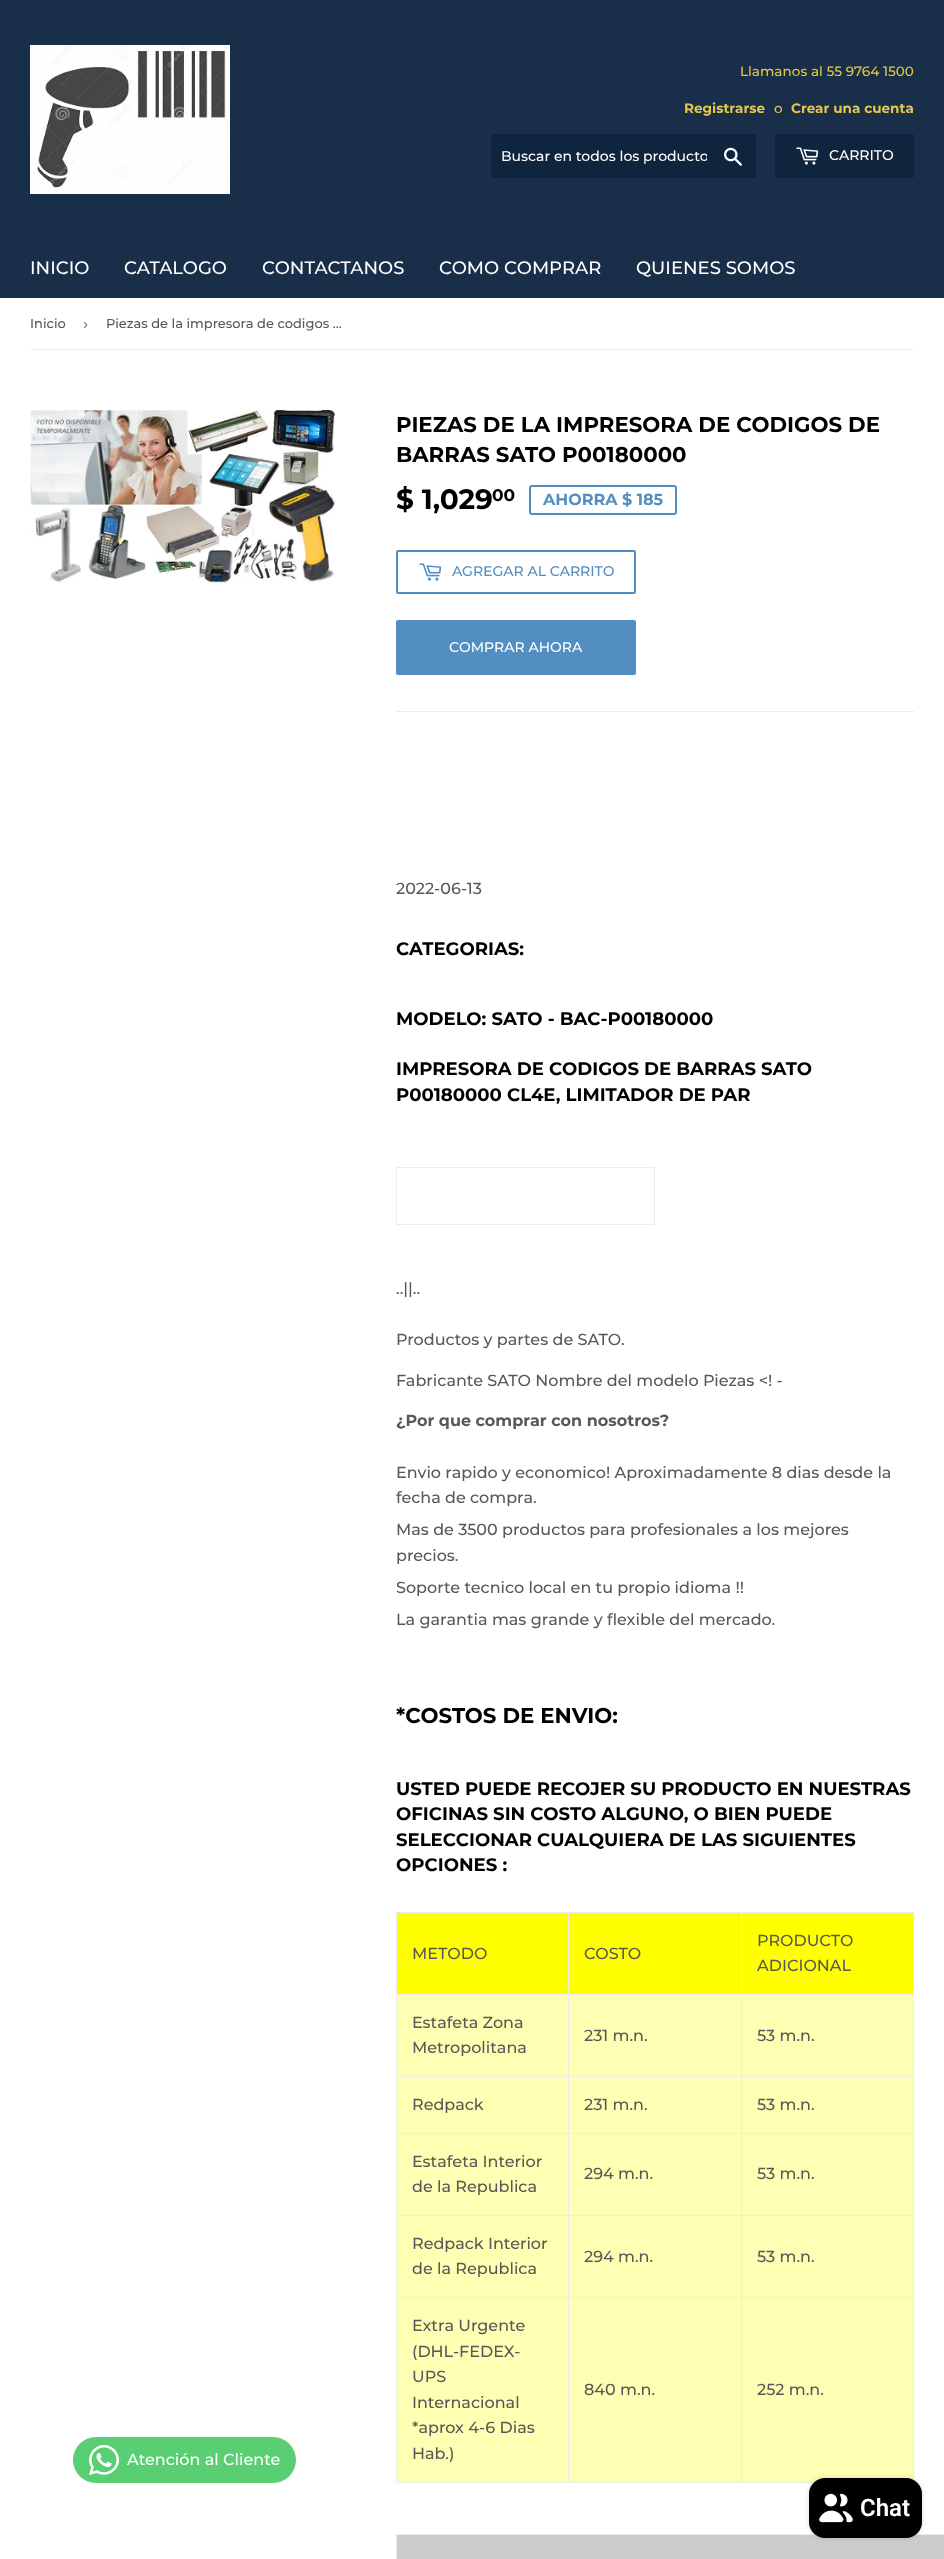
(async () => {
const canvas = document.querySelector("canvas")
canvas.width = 944
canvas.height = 2559
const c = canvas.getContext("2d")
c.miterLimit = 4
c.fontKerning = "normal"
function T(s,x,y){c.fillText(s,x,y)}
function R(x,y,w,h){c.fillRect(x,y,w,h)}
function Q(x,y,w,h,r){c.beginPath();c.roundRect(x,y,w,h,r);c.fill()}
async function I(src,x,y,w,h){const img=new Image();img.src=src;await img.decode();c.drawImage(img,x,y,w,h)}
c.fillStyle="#fff"
R(0,0,944,2559)
c.fillStyle="#182e49"
R(0,0,944,298)
await I("1.png",30,45,200,149)
c.font="500 13.6px Montserrat"
c.fillStyle="#e5c649"
T("Llamanos al 55 9764 1500",740,76)
c.font="bold 13.6px Montserrat"
T("Registrarse",684,113)
c.font="500 13.6px Montserrat"
T("o",774,113)
c.font="bold 13.6px Montserrat"
T("Crear una cuenta",791,113)
c.fillStyle="#0f243d"
Q(491,134,265,44,2)
c.save()
c.beginPath()
c.rect(501,147,206,18)
c.clip()
c.font="500 14px Montserrat"
c.fillStyle="#fff"
T("Buscar en todos los producto",501,161)
c.restore()
await I("2.png",724,147,18,19)
Q(775,134,139,44,2)
await I("3.png",796,147,23,18)
c.font="500 14px Montserrat"
c.fillStyle="#fff"
T("CARRITO",829,160)
c.font="500 18px Montserrat"
T("INICIO",30,274)
T("CATALOGO",124,274)
T("CONTACTANOS",262,274)
T("COMO COMPRAR",439,274)
T("QUIENES SOMOS",636,274)
c.fillStyle="#ececec"
R(30,349,884,1)
c.font="500 13px Montserrat"
c.fillStyle="#585858"
T("Inicio",30,328)
c.font="15px Liberation Sans"
c.fillStyle="#767676"
T("›",83,329)
c.font="500 13px Montserrat"
c.fillStyle="#585858"
T("Piezas de la impresora de codigos …",106,328)
await I("4.png",30,410,305,174)
c.font="bold 21.3px Montserrat"
c.fillStyle="#000"
T("PIEZAS DE LA IMPRESORA DE CODIGOS DE",396,432)
T("BARRAS SATO P00180000",396,462)
c.font="bold 28px Montserrat"
T("$ 1,029",396,509)
c.font="bold 17px Montserrat"
T("00",492,501)
c.beginPath()
c.roundRect(530,486,146,28,2)
c.strokeStyle="#528ec1"
c.lineWidth=2
c.stroke()
c.font="bold 16px Montserrat"
c.fillStyle="#528ec1"
T("AHORRA $ 185",543,505)
c.beginPath()
c.roundRect(397,551,238,42,1)
c.stroke()
await I("5.png",419,563,23,18)
c.font="500 14px Montserrat"
T("AGREGAR AL CARRITO",452,576)
Q(396,620,240,55,2)
c.fillStyle="#fff"
T("COMPRAR AHORA",449,652)
c.fillStyle="#ececec"
R(396,711,518,1)
c.font="500 16px Montserrat"
c.fillStyle="#585858"
T("2022-06-13",396,894)
c.font="bold 18.1px Montserrat"
c.fillStyle="#000"
T("CATEGORIAS:",396,955)
T("MODELO: SATO - BAC-P00180000",396,1025)
T("IMPRESORA DE CODIGOS DE BARRAS SATO",396,1075)
T("P00180000 CL4E, LIMITADOR DE PAR",396,1101)
c.fillStyle="#ececec"
R(396,1167,259,1)
R(654,1167,1,58)
R(396,1224,259,1)
R(396,1167,1,58)
c.font="500 16px Montserrat"
c.fillStyle="#585858"
T("..||..",396,1294)
T("Productos y partes de SATO.",396,1345)
T("Fabricante SATO Nombre del modelo Piezas <! -",396,1386)
c.font="bold 16px Montserrat"
T("¿Por que comprar con nosotros?",396,1426)
c.font="500 16px Montserrat"
T("Envio rapido y economico! Aproximadamente 8 dias desde la",396,1478)
T("fecha de compra.",396,1503)
T("Mas de 3500 productos para profesionales a los mejores",396,1535)
T("precios.",396,1561)
T("Soporte tecnico local en tu propio idioma !!",396,1593)
T("La garantia mas grande y flexible del mercado.",396,1625)
c.font="bold 21.3px Montserrat"
c.fillStyle="#000"
T("*COSTOS DE ENVIO:",396,1723)
c.font="bold 18.1px Montserrat"
T("USTED PUEDE RECOJER SU PRODUCTO EN NUESTRAS",396,1795)
T("OFICINAS SIN COSTO ALGUNO, O BIEN PUEDE",396,1820)
T("SELECCIONAR CUALQUIERA DE LAS SIGUIENTES",396,1846)
T("OPCIONES :",396,1871)
c.fillStyle="#ff0"
R(397,1913,516,81)
c.fillStyle="#ececec"
R(741,1912,173,1)
R(741,1994,173,1)
c.fillStyle="#ffffb3"
R(397,1995,516,81)
c.fillStyle="#ececec"
R(741,2076,173,1)
c.fillStyle="#ffffb3"
R(397,2077,516,56)
c.fillStyle="#ececec"
R(741,2133,173,1)
c.fillStyle="#ffffb3"
R(397,2134,516,81)
c.fillStyle="#ececec"
R(741,2215,173,1)
c.fillStyle="#ffffb3"
R(397,2216,516,81)
c.fillStyle="#ececec"
R(741,2297,173,1)
c.fillStyle="#ffffb3"
R(397,2298,516,184)
c.fillStyle="#ececec"
R(741,2482,74,1)
R(741,2297,1,186)
R(568,2297,174,1)
R(741,2215,1,83)
R(568,2215,174,1)
R(741,2133,1,83)
R(568,2133,174,1)
R(741,2076,1,58)
R(568,2076,174,1)
R(741,1994,1,83)
R(568,1994,174,1)
R(741,1912,1,83)
R(568,1912,174,1)
R(568,2482,174,1)
R(568,2297,1,186)
R(396,2297,173,1)
R(568,2215,1,83)
R(396,2215,173,1)
R(568,2133,1,83)
R(396,2133,173,1)
R(568,2076,1,58)
R(396,2076,173,1)
R(568,1994,1,83)
R(396,1994,173,1)
R(568,1912,1,83)
R(396,1912,173,1)
R(396,2482,173,1)
R(396,2297,1,186)
R(396,2215,1,83)
R(396,2133,1,83)
R(396,2076,1,58)
R(396,1994,1,83)
R(396,1912,1,83)
c.font="500 16px Montserrat"
c.fillStyle="#585858"
T("METODO",412,1959)
T("COSTO",584,1959)
c.fillStyle="#ececec"
R(913,2297,1,186)
R(913,2215,1,83)
R(913,2133,1,83)
R(913,2076,1,58)
R(913,1994,1,83)
R(913,1912,1,83)
c.fillStyle="#585858"
T("PRODUCTO",757,1946)
T("ADICIONAL",757,1971)
T("Estafeta Zona",412,2028)
T("Metropolitana",412,2053)
T("231 m.n.",584,2041)
T("53 m.n.",757,2041)
T("Redpack",412,2110)
T("231 m.n.",584,2110)
T("53 m.n.",757,2110)
T("Estafeta Interior",412,2167)
T("de la Republica",412,2192)
T("294 m.n.",584,2179)
T("53 m.n.",757,2179)
T("Redpack Interior",412,2249)
T("de la Republica",412,2274)
T("294 m.n.",584,2262)
T("53 m.n.",757,2262)
T("Extra Urgente",412,2331)
T("(DHL-FEDEX-",412,2357)
T("UPS",412,2382)
T("Internacional",412,2408)
T("*aprox 4-6 Dias",412,2433)
T("Hab.)",412,2459)
T("840 m.n.",584,2395)
T("252 m.n.",757,2395)
c.fillStyle="#ccc"
R(397,2535,547,24)
c.fillStyle="#ececec"
R(396,2534,548,1)
R(396,2534,1,25)
c.fillStyle="#59ce72"
Q(73,2437,223,46,23)
await I("6.png",89,2445,30,30)
c.fillStyle="#fff"
T("Atención al Cliente",127,2465)
c.fillStyle="#00000026"
c.filter="blur(2.5px)"
c.beginPath()
c.roundRect(809,2478,113,60,16)
c.fill()
c.filter="none"
c.fillStyle="#000"
Q(809,2478,113,60,16)
await I("7.png",819,2493,34,30)
c.font="600 24px Roboto"
c.fillStyle="#fff"
T("Chat",860,2516)
})()
